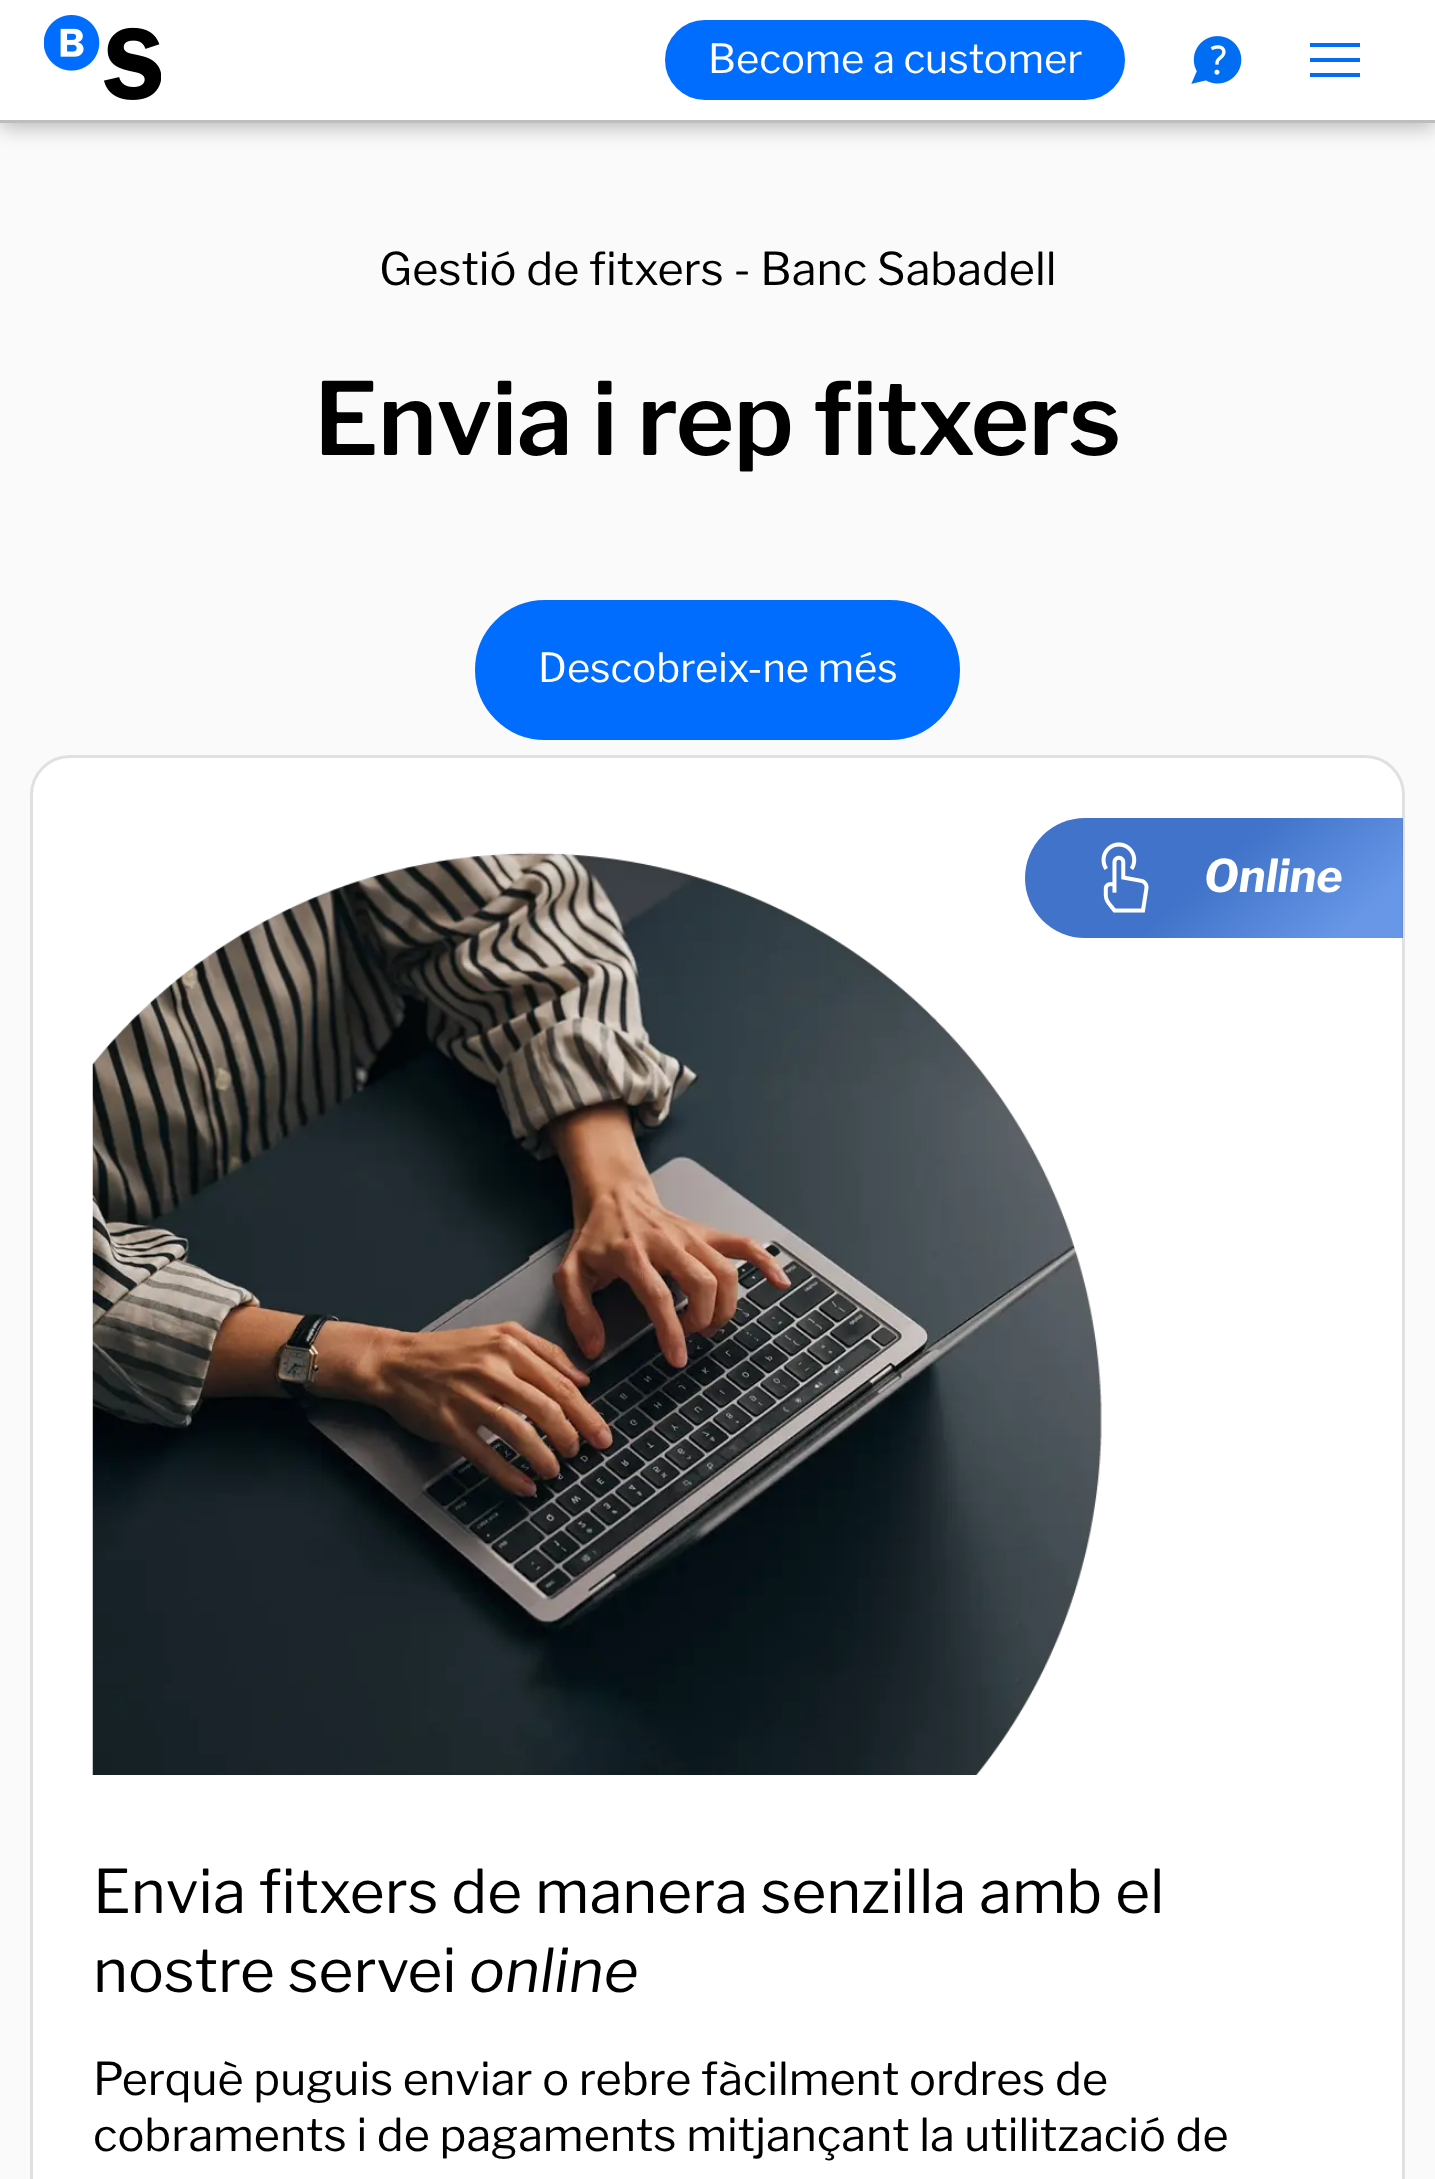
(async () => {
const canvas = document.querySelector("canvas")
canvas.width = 1435
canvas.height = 2179
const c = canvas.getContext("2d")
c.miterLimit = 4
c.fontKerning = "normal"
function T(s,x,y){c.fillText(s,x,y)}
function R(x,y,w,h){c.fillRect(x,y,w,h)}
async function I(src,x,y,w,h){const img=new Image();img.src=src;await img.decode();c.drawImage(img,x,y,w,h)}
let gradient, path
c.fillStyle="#fafafa"
R(0,0,1435,2179)
c.fillStyle="#00000040"
c.filter="blur(10px)"
c.beginPath()
c.rect(0,5,1435,123)
c.fill()
c.filter="none"
c.fillStyle="#fff"
R(0,0,1435,120)
await I("1.png",44,15,117,85)
c.fillStyle="#006dff"
c.beginPath()
c.roundRect(666.5,21.5,457,77,38.5)
c.fill()
c.strokeStyle="#006dff"
c.lineWidth=3
c.stroke()
c.font="40px Libre Franklin"
c.fillStyle="#fff"
T("Become a customer",708,73)
await I("2.png",1191,36,51,48)
c.fillStyle="#006df2"
path = new Path2D("M1360 73v4h-50v-4zm0-15v4h-50v-4zm0-15v4h-50v-4z")
c.fill(path)
c.fillStyle="#bdbdbd"
R(0,120,1435,3)
c.font="45px Libre Franklin"
c.fillStyle="#000"
T("Gestió de fitxers - Banc Sabadell",379,285)
c.letterSpacing="-0.75px"
c.font="600 100px Libre Franklin"
T("Envia i rep fitxers",314,455)
c.fillStyle="#006dff"
c.beginPath()
c.roundRect(476.5,601.5,482,137,68.5)
c.fill()
c.stroke()
c.letterSpacing="0px"
c.font="40px Libre Franklin"
c.fillStyle="#fff"
T("Descobreix-ne més",538,682)
c.beginPath()
c.roundRect(31.5,756.5,1372,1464,38.5)
c.fill()
c.strokeStyle="#e0e0e0"
c.stroke()
await I("3.png",92,852,1010,923)
gradient = c.createLinearGradient(1100,750,1327,1005)
gradient.addColorStop(.48,"#0044b7bf")
gradient.addColorStop(.87,"#3473debf")
c.fillStyle = gradient
c.beginPath()
c.roundRect(1025,818,378,120,[60,0,0,60])
c.fill()
await I("4.png",1101,842,48,71)
c.font="italic bold 45px Libre Franklin"
c.fillStyle="#fff"
T("Online",1204,892)
c.font="60px Libre Franklin"
c.fillStyle="#000"
T("Envia fitxers de manera senzilla amb el",93,1913)
T("nostre servei",93,1992)
c.font="italic 60px Libre Franklin"
T("online",469,1992)
c.font="45px Libre Franklin"
T("Perquè puguis enviar o rebre fàcilment ordres de",93,2095)
T("cobraments i de pagaments mitjançant la utilització de",93,2151)
})()
